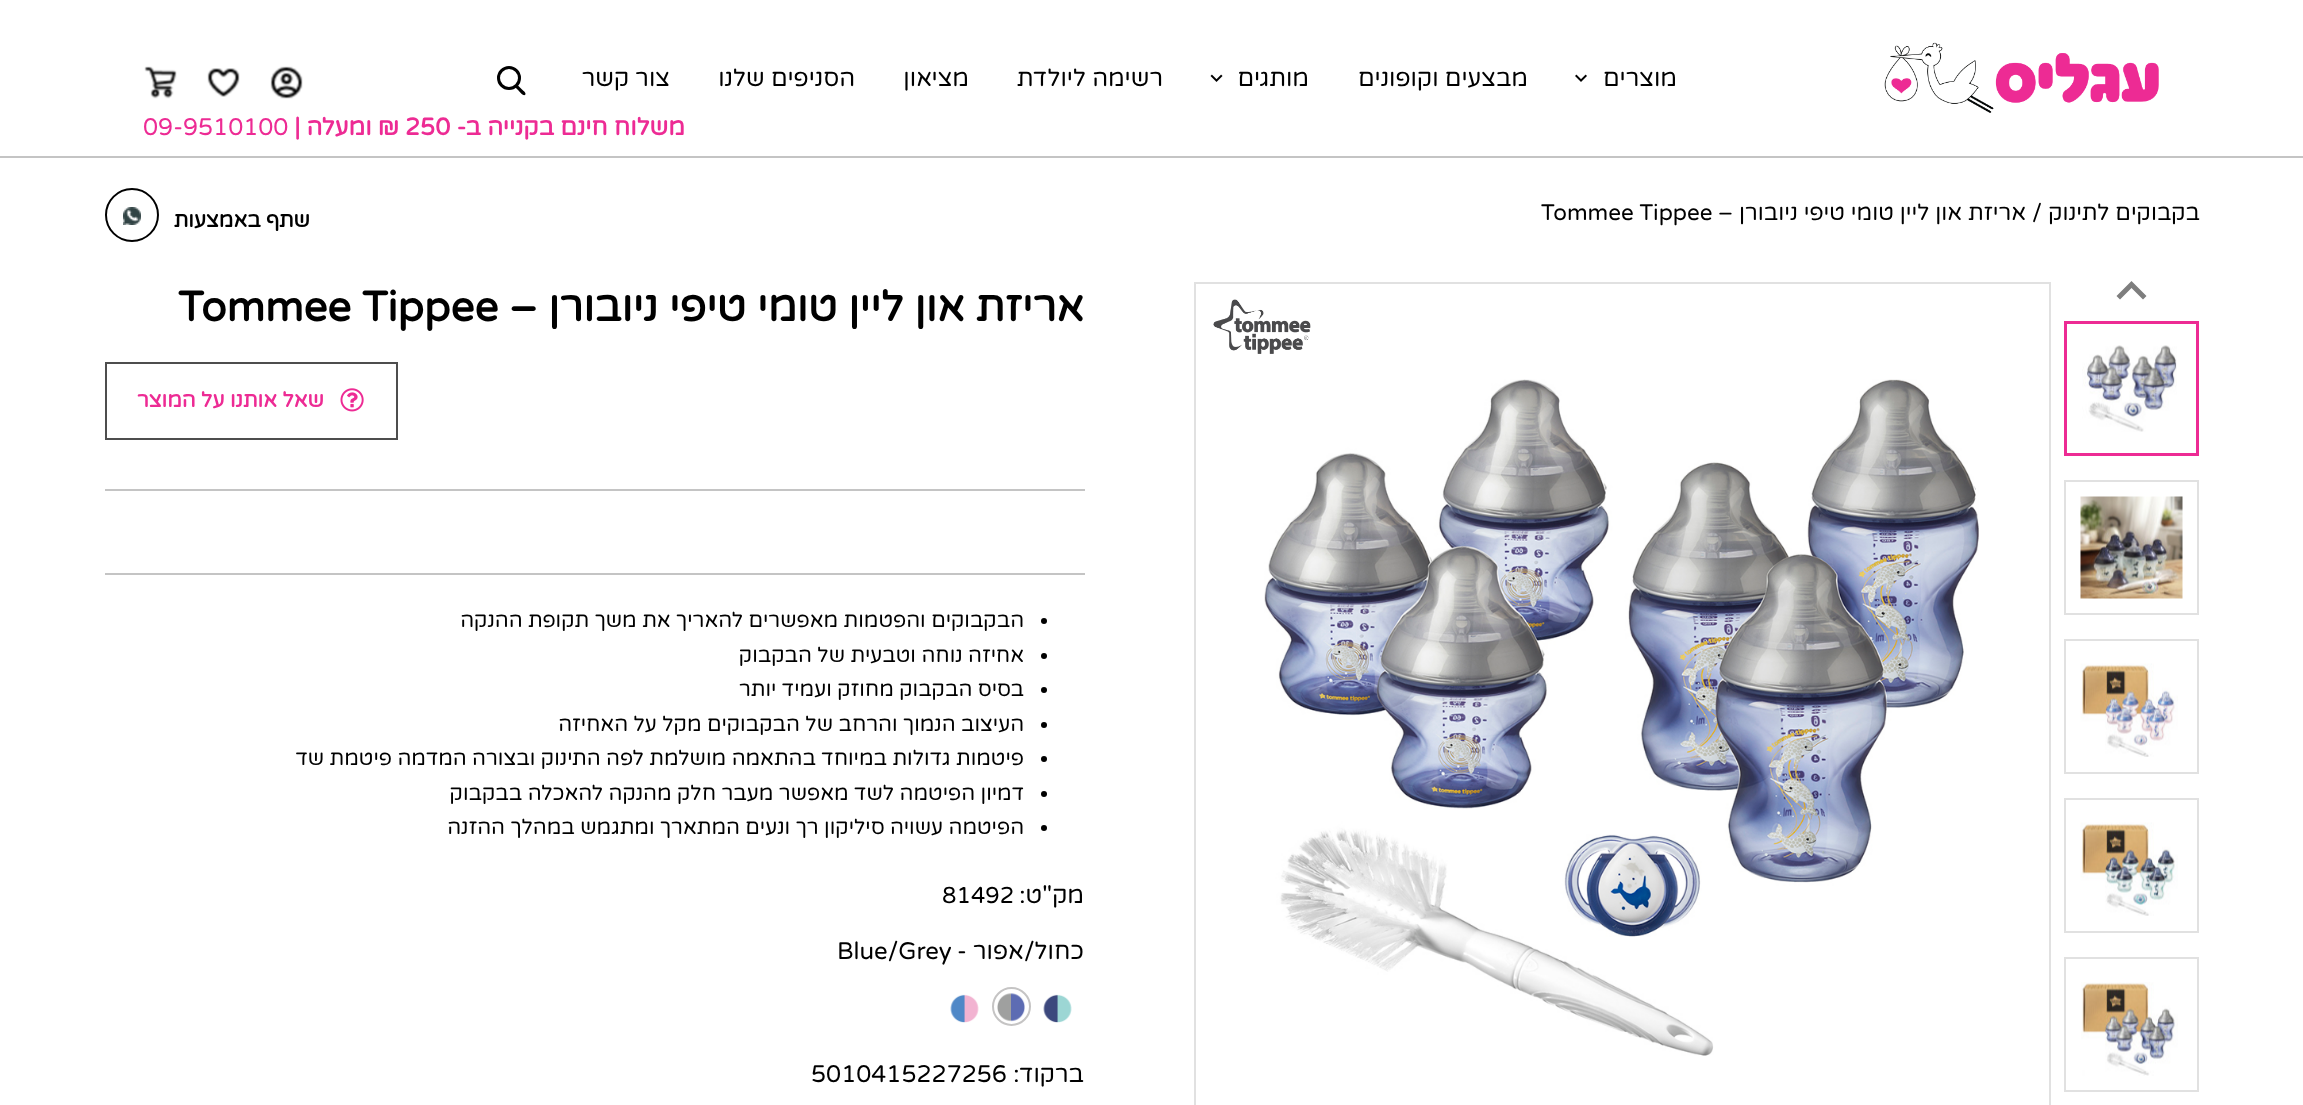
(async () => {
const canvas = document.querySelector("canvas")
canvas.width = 2303
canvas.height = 1105
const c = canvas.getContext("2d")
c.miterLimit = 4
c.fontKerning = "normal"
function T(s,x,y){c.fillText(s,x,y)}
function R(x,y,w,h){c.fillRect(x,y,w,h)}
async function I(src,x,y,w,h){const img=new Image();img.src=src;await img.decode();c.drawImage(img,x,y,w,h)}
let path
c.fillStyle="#fff"
R(0,0,2303,1105)
c.fillStyle="#c4c4c4"
R(0,156,2303,2)
await I("1.png",1884,42,275,71)
c.direction="rtl"
c.font="24px Varela Round"
c.fillStyle="#000"
T("מוצרים",1677,86)
await I("2.png",1575,74,12,8)
T("מבצעים וקופונים",1528,86)
T("מותגים",1309,86)
await I("3.png",1210,74,13,8)
T("רשימה ליולדת",1163,86)
T("מציאון",969,86)
T("הסניפים שלנו",855,86)
T("צור קשר",670,86)
c.beginPath()
c.arc(509,78,10.5,0,7)
c.strokeStyle="#000"
c.lineWidth=3
c.stroke()
path = new Path2D("M517.5 85l4 4c1 1 4.5 3.5 4 5c-1 4-7-3.5-7.5-4l-3-3c-.5-1.5 1.5-3 2.5-2z")
c.fill(path)
await I("4.png",270,66,33,33)
await I("5.png",207,68,33,29)
await I("6.png",144,66,33,33)
c.font="bold 24px Varela Round"
c.fillStyle="#ed2b94"
T("משלוח חינם בקנייה ב-",685,135)
c.direction="ltr"
T("250",405,135)
c.direction="rtl"
T("₪ ומעלה |",399,135)
c.direction="ltr"
c.font="24px Varela Round"
T("09-9510100",143,135)
c.direction="rtl"
c.font="22.5px Varela Round"
c.fillStyle="#000"
T("בקבוקים לתינוק",2200,220)
c.direction="ltr"
T("/",2032,220)
c.direction="rtl"
T("אריזת און ליין טומי טיפי ניובורן –",2026,220)
c.direction="ltr"
T("Tommee Tippee",1541,220)
c.direction="rtl"
c.font="bold 21px Varela Round"
T("שתף באמצעות",310,227)
c.beginPath()
c.arc(132,215,26,0,7)
c.lineWidth=2
c.stroke()
await I("7.png",123,207,18,18)
c.fillStyle="#7e7e7e"
path = new Path2D("M2131.5 281l15 15l-3.5 3.5l-11.5-11.5l-11.5 11.5l-3.5-3.5z")
c.fill(path)
c.strokeStyle="#ed2b94"
c.lineWidth=3
c.strokeRect(2065.5,322.5,132,132)
await I("8.png",2082,345,95,87)
c.strokeStyle="#e1e1e1"
c.lineWidth=2
c.strokeRect(2065,481,133,133)
await I("9.png",2080,496,103,103)
c.strokeRect(2065,640,133,133)
await I("10.png",2080,663,98,94)
c.strokeRect(2065,799,133,133)
await I("11.png",2080,822,98,94)
c.strokeRect(2065,958,133,133)
await I("12.png",2081,982,97,94)
c.strokeRect(1195,283,855,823)
await I("13.png",1264,379,715,677)
await I("14.png",1213,299,98,55)
c.font="bold 42px Varela Round"
c.fillStyle="#000"
T("אריזת און ליין טומי טיפי ניובורן –",1084,321)
c.direction="ltr"
T("Tommee Tippee",178,321)
c.strokeStyle="#4e4e4e"
c.strokeRect(106,363,291,76)
await I("15.png",340,388,24,24)
c.direction="rtl"
c.font="bold 21px Varela Round"
c.fillStyle="#ed2b94"
T("שאל אותנו על המוצר",324,407)
c.fillStyle="#c4c4c4"
R(105,489,980,2)
R(105,573,980,2)
c.fillStyle="#000"
c.beginPath()
c.arc(1044,621,3,0,7)
c.fill()
c.font="21px Varela Round"
T("הבקבוקים והפטמות מאפשרים להאריך את משך תקופת ההנקה",1024,627)
c.beginPath()
c.arc(1044,656,3,0,7)
c.fill()
T("אחיזה נוחה וטבעית של הבקבוק",1024,662)
c.beginPath()
c.arc(1044,690,3,0,7)
c.fill()
T("בסיס הבקבוק מחוזק ועמיד יותר",1024,696)
c.beginPath()
c.arc(1044,725,3,0,7)
c.fill()
T("העיצוב הנמוך והרחב של הבקבוקים מקל על האחיזה",1024,731)
c.beginPath()
c.arc(1044,759,3,0,7)
c.fill()
T("פיטמות גדולות במיוחד בהתאמה מושלמת לפה התינוק ובצורה המדמה פיטמת שד",1024,765)
c.beginPath()
c.arc(1044,794,3,0,7)
c.fill()
T("דמיון הפיטמה לשד מאפשר מעבר חלק מהנקה להאכלה בבקבוק",1024,800)
c.beginPath()
c.arc(1044,828,3,0,7)
c.fill()
T("הפיטמה עשויה סיליקון רך ונעים המתארך ומתגמש במהלך ההזנה",1024,834)
c.font="24px Varela Round"
T("מק\"ט:",1084,903)
c.direction="ltr"
c.font="23px Varela Round"
T("81492",942,903)
c.direction="rtl"
c.font="24px Varela Round"
T("כחול/אפור -",1084,959)
c.direction="ltr"
T("Blue/Grey",837,959)
await I("16.png",1043,994,29,29)
c.beginPath()
c.arc(1011.5,1006.5,18.5,0,7)
c.strokeStyle="#c5c4c4"
c.stroke()
await I("17.png",997,993,28,29)
await I("18.png",950,994,29,29)
c.direction="rtl"
T("ברקוד:",1084,1082)
c.direction="ltr"
T("5010415227256",811,1082)
})()
